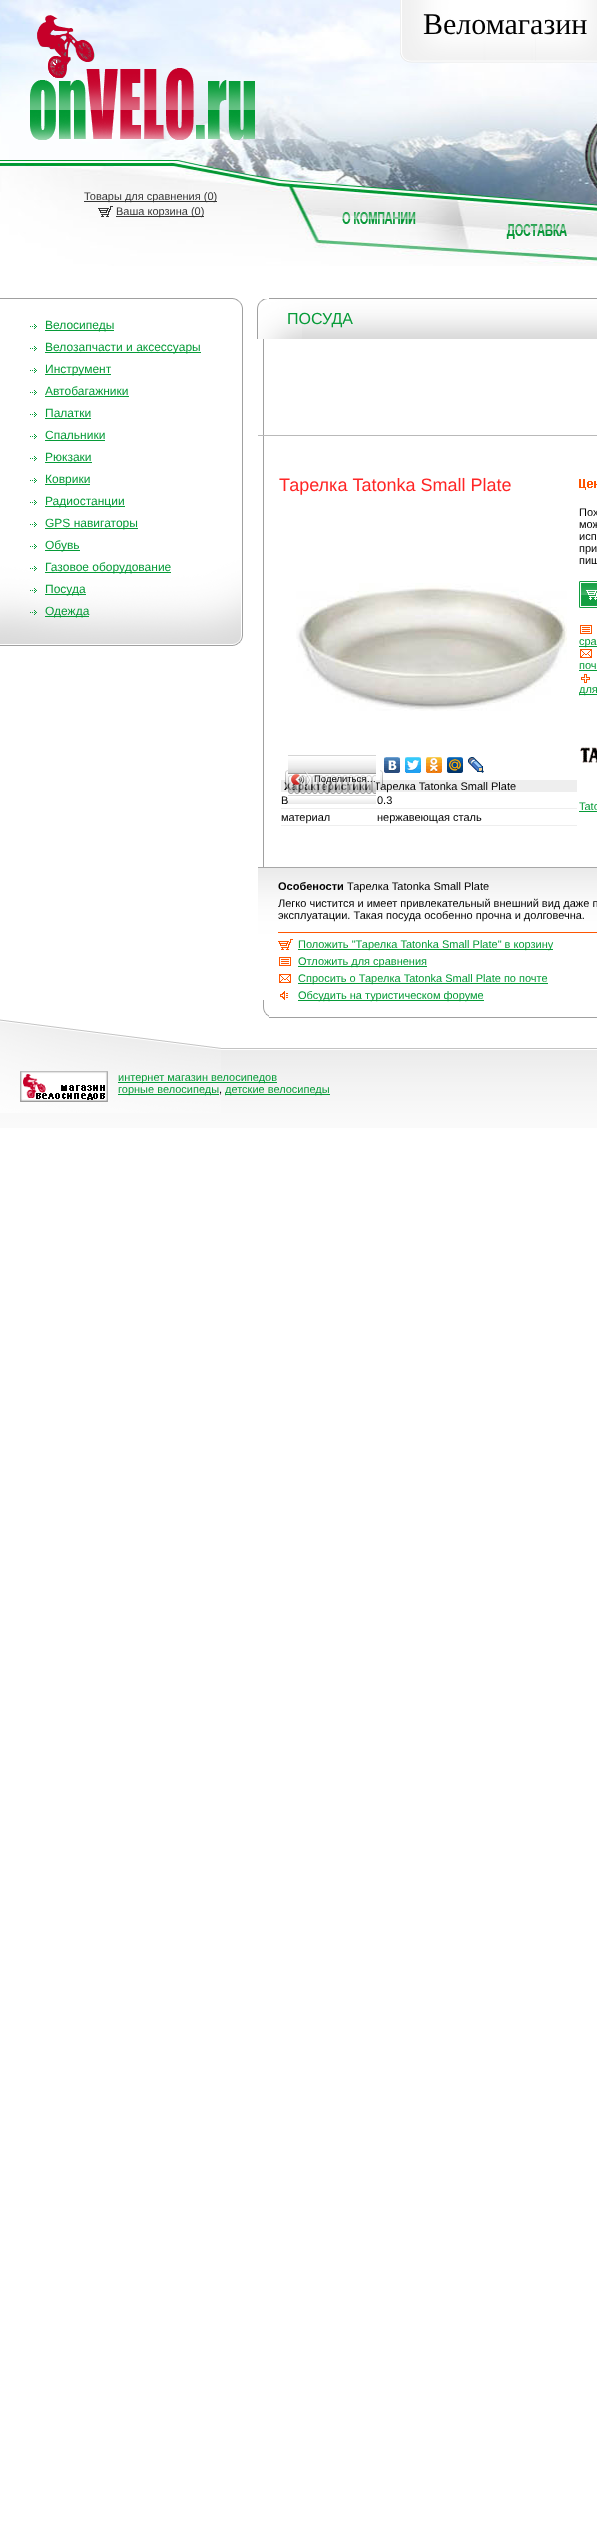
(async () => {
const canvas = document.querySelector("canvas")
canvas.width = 597
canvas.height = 2542
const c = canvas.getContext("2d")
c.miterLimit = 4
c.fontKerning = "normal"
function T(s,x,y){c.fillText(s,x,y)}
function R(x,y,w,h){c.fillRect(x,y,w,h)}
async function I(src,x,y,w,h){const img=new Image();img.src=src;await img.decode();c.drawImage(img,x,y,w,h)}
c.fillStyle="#fff"
R(0,0,597,2542)
await I("1.png",0,0,597,266)
await I("2.png",30,15,225,125)
await I("3.png",400,0,197,64)
c.font="30px Liberation Serif"
c.fillStyle="#000"
T("Веломагазин",423,34)
c.fillStyle="#363636"
R(84,201,133,1)
c.font="11px Liberation Sans"
T("Товары для сравнения (0)",84,200)
await I("4.png",98,206,15,11)
R(116,216,88,1)
T("Ваша корзина (0)",116,215)
await I("5.png",342,212,74,12)
await I("6.png",506,224,61,15)
await I("7.png",0,298,243,11)
await I("8.png",0,554,243,92)
c.fillStyle="#a0a0a0"
R(242,308,1,328)
await I("9.png",30,324,7,5)
c.fillStyle="#069b38"
R(45,330,69,1)
c.font="12px Liberation Sans"
T("Велосипеды",45,329)
await I("9.png",30,346,7,5)
R(45,352,156,1)
T("Велозапчасти и аксессуары",45,351)
await I("9.png",30,368,7,5)
R(45,374,66,1)
T("Инструмент",45,373)
await I("9.png",30,390,7,5)
T("Автобагажники",45,395)
R(45,396,84,1)
await I("9.png",30,412,7,5)
T("Палатки",45,417)
R(45,418,46,1)
await I("9.png",30,434,7,5)
T("Спальники",45,439)
R(45,440,60,1)
await I("9.png",30,456,7,5)
T("Рюкзаки",45,461)
R(45,462,47,1)
await I("9.png",30,478,7,5)
R(45,484,45,1)
T("Коврики",45,483)
await I("9.png",30,500,7,5)
R(45,506,80,1)
T("Радиостанции",45,505)
await I("9.png",30,522,7,5)
R(45,528,93,1)
T("GPS навигаторы",45,527)
await I("9.png",30,544,7,5)
R(45,550,35,1)
T("Обувь",45,549)
await I("10.png",30,566,7,5)
R(45,572,126,1)
T("Газовое оборудование",45,571)
await I("11.png",30,588,7,5)
R(45,594,41,1)
T("Посуда",45,593)
await I("12.png",30,610,7,5)
R(45,616,44,1)
T("Одежда",45,615)
c.fillStyle="#a0a0a0"
R(269,298,328,1)
R(263,339,1,667)
await I("13.png",302,299,295,40)
await I("14.png",257,299,45,40)
c.font="16px Liberation Sans"
c.fillStyle="#069b38"
T("ПОСУДА",287,324)
c.fillStyle="#b9b9b9"
R(258,435,339,1)
c.font="18px Liberation Sans"
c.fillStyle="#ff2626"
T("Тарелка Tatonka Small Plate",279,491)
await I("15.png",296,583,271,128)
await I("16.png",384,757,16,16)
await I("17.png",405,757,16,16)
await I("18.png",426,757,16,16)
await I("19.png",447,757,16,16)
await I("20.png",468,757,16,16)
c.fillStyle="#eee"
R(281,780,296,12)
c.font="bold 11px Liberation Sans"
c.fillStyle="#000"
T("Характеристики",284,790)
c.font="11px Liberation Sans"
T("Тарелка Tatonka Small Plate",374,790)
await I("21.png",288,755,88,49)
await I("22.png",285,770,3,19)
await I("23.png",291,771,20,17)
c.font="9.5px Liberation Sans"
T("Поделиться…",314,782)
await I("24.png",380,770,3,19)
c.font="11px Liberation Sans"
T("В",281,804)
T("0.3",377,804)
c.fillStyle="#eee"
R(281,808,296,1)
c.fillStyle="#000"
T("материал",281,821)
T("нержавеющая сталь",377,821)
c.fillStyle="#eee"
R(281,825,296,1)
await I("25.png",579,479,18,11)
c.fillStyle="#000"
T("Пох",579,516)
T("мож",579,528)
T("исп",579,540)
T("при",579,552)
T("пищ",579,564)
await I("26.png",579,581,18,27)
await I("27.png",580,625,12,9)
c.fillStyle="#069b38"
R(579,646,18,1)
T("сра",579,645)
await I("28.png",580,649,12,9)
T("поч",579,669)
R(579,670,18,1)
await I("29.png",581,674,9,9)
R(579,694,18,1)
T("для",579,693)
await I("30.png",580,747,17,16)
T("Tato",579,810)
R(579,811,18,1)
await I("31.png",258,868,339,132)
c.fillStyle="#a7a7a7"
R(258,867,339,1)
c.font="bold 11px Liberation Sans"
c.fillStyle="#000"
T("Особености",278,890)
c.font="11px Liberation Sans"
T("Тарелка Tatonka Small Plate",347,890)
T("Легко чистится и имеет привлекательный внешний вид даже п",278,907)
T("эксплуатации. Такая посуда особенно прочна и долговечна.",278,919)
c.fillStyle="#fe5501"
R(278,932,319,1)
await I("32.png",278,939,15,11)
c.fillStyle="#069b38"
R(298,949,255,1)
T("Положить \"Тарелка Tatonka Small Plate\" в корзину",298,948)
await I("27.png",279,957,12,9)
R(298,966,129,1)
T("Отложить для сравнения",298,965)
await I("28.png",279,974,12,9)
R(298,983,250,1)
T("Спросить о Тарелка Tatonka Small Plate по почте",298,982)
await I("33.png",280,991,8,9)
R(298,1000,186,1)
T("Обсудить на туристическом форуме",298,999)
await I("34.png",263,1006,6,11)
c.fillStyle="#a0a0a0"
R(269,1017,328,1)
await I("35.png",0,1048,597,80)
await I("36.png",0,1019,221,94)
await I("37.png",20,1071,88,31)
c.fillStyle="#069b38"
R(118,1082,159,1)
T("интернет магазин велосипедов",118,1081)
R(118,1094,101,1)
T("горные велосипеды",118,1093)
c.fillStyle="#000"
T(",",219,1093)
c.fillStyle="#069b38"
R(225,1094,105,1)
T("детские велосипеды",225,1093)
})()
